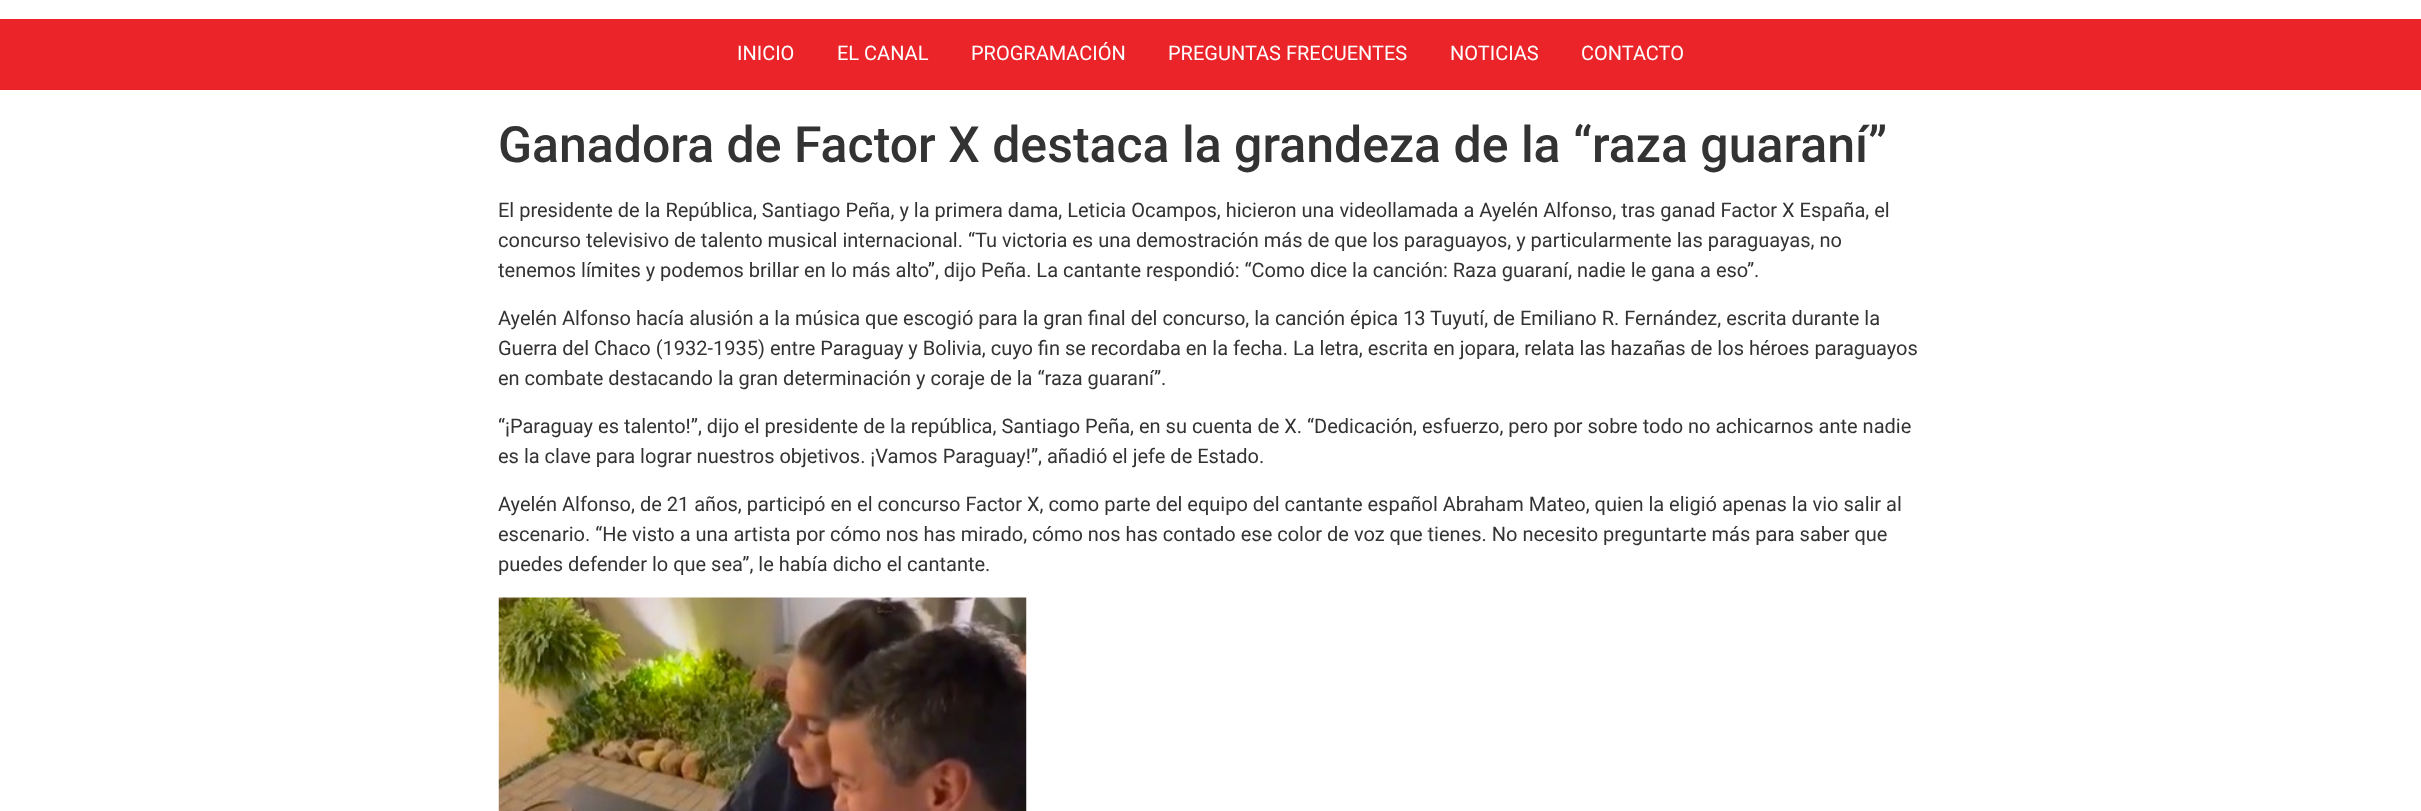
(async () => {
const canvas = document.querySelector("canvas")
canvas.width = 2421
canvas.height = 811
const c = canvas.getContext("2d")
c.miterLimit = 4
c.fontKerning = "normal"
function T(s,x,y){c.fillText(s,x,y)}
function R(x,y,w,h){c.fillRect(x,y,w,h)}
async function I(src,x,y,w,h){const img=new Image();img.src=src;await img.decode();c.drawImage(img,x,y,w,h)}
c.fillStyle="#fff"
R(0,0,2421,811)
c.fillStyle="#ea2428"
R(0,19,2421,71)
c.font="20px Roboto"
c.fillStyle="#fff"
T("INICIO",737,60)
T("EL CANAL",837,60)
T("PROGRAMACIÓN",971,60)
T("PREGUNTAS FRECUENTES",1168,60)
T("NOTICIAS",1450,60)
T("CONTACTO",1581,60)
c.font="500 50px Roboto"
c.fillStyle="#333"
T("Ganadora de Factor X destaca la grandeza de la “raza guaraní”",498,162)
c.font="20px Roboto"
T("El presidente de la República, Santiago Peña, y la primera dama, Leticia Ocampos, hicieron una videollamada a Ayelén Alfonso, tras ganad Factor X España, el",498,217)
T("concurso televisivo de talento musical internacional. “Tu victoria es una demostración más de que los paraguayos, y particularmente las paraguayas, no",498,247)
T("tenemos límites y podemos brillar en lo más alto”, dijo Peña. La cantante respondió: “Como dice la canción: Raza guaraní, nadie le gana a eso”.",498,277)
T("Ayelén Alfonso hacía alusión a la música que escogió para la gran final del concurso, la canción épica 13 Tuyutí, de Emiliano R. Fernández, escrita durante la",498,325)
T("Guerra del Chaco (1932-1935) entre Paraguay y Bolivia, cuyo fin se recordaba en la fecha. La letra, escrita en jopara, relata las hazañas de los héroes paraguayos",498,355)
T("en combate destacando la gran determinación y coraje de la “raza guaraní”.",498,385)
T("“¡Paraguay es talento!”, dijo el presidente de la república, Santiago Peña, en su cuenta de X. “Dedicación, esfuerzo, pero por sobre todo no achicarnos ante nadie",498,433)
T("es la clave para lograr nuestros objetivos. ¡Vamos Paraguay!”, añadió el jefe de Estado.",498,463)
T("Ayelén Alfonso, de 21 años, participó en el concurso Factor X, como parte del equipo del cantante español Abraham Mateo, quien la eligió apenas la vio salir al",498,511)
T("escenario. “He visto a una artista por cómo nos has mirado, cómo nos has contado ese color de voz que tienes. No necesito preguntarte más para saber que",498,541)
T("puedes defender lo que sea”, le había dicho el cantante.",498,571)
await I("1.png",498,597,529,214)
})()
